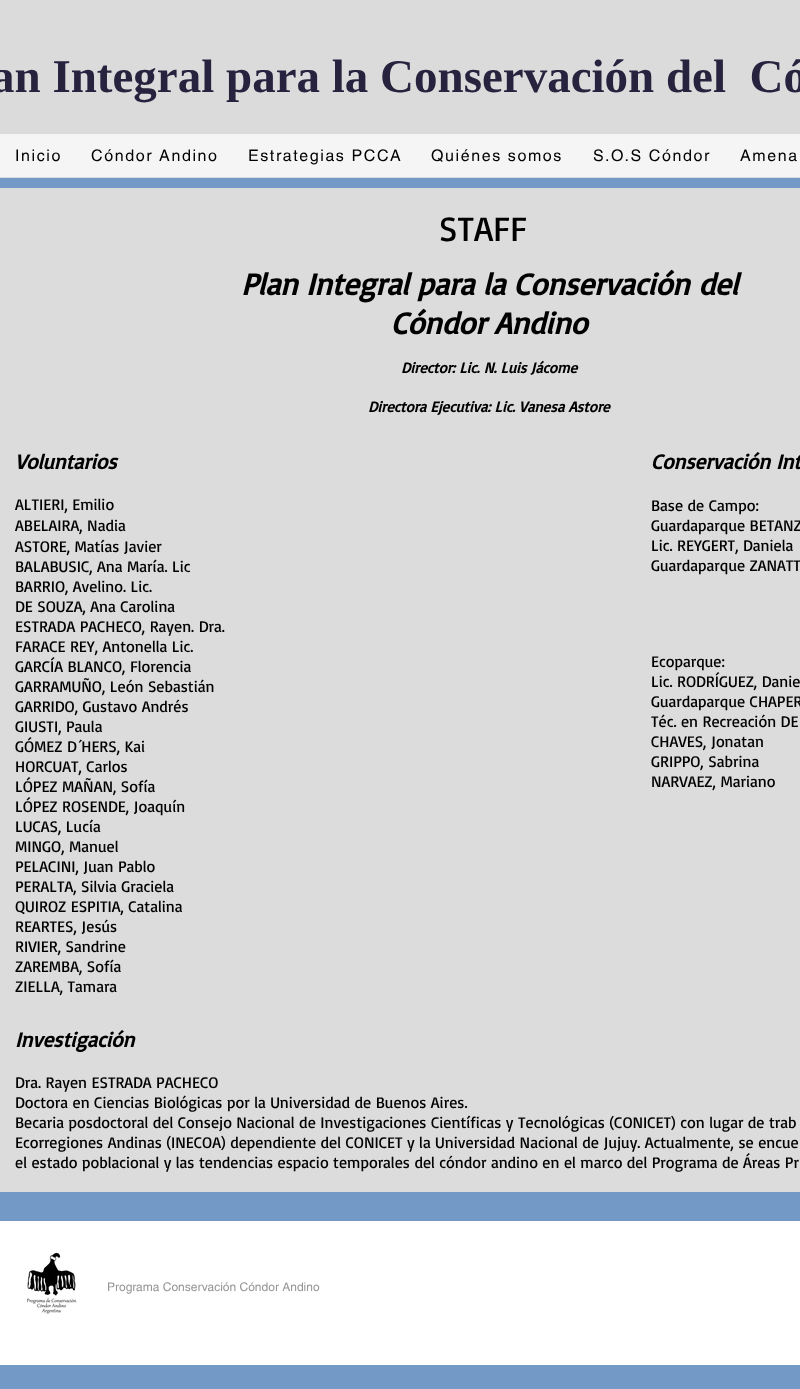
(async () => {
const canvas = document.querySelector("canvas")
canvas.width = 800
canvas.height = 1389
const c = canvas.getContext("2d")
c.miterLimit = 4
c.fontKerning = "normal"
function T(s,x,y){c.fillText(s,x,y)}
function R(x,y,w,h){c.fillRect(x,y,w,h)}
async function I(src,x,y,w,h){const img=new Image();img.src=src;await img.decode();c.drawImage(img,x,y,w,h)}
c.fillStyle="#739ac7"
R(0,0,800,1389)
c.fillStyle="#dbdbdb"
R(0,0,800,178)
c.font="bold 47px Liberation Serif"
c.fillStyle="#27223e"
T("an Integral para la Conservación del  Có",-9,92)
c.fillStyle="#f5f5f5"
R(0,134,800,43)
c.letterSpacing="1.6px"
c.font="16px helvetica"
c.fillStyle="#000"
T("Inicio",15,161)
T("Cóndor Andino",91,161)
T("Estrategias PCCA",248,161)
T("Quiénes somos",431,161)
T("S.O.S Cóndor",593,161)
T("Amena",740,161)
c.fillStyle="#dcdcdc"
R(0,188,800,1004)
c.letterSpacing="0px"
c.font="35px Basic"
c.fillStyle="#000"
T("STAFF",439,241)
c.font="italic bold 31px Basic"
T("Plan Integral para la Conservación del",241,295)
T("Cóndor Andino",391,334)
c.font="italic bold 15px Basic"
T("Director: Lic. N. Luis Jácome",401,373)
T("Directora Ejecutiva: Lic. Vanesa Astore",368,412)
c.font="italic bold 21px Basic"
T("Voluntarios",15,469)
c.font="16px Basic"
T("ALTIERI, Emilio",15,510)
T("ABELAIRA, Nadia",15,531)
T("ASTORE, Matías Javier",15,552)
T("BALABUSIC, Ana María. Lic",15,572)
T("BARRIO, Avelino. Lic.",15,592)
T("DE SOUZA, Ana Carolina",15,612)
T("ESTRADA PACHECO, Rayen. Dra.",15,632)
T("FARACE REY, Antonella Lic.",15,652)
T("GARCÍA BLANCO, Florencia",15,672)
T("GARRAMUÑO, León Sebastián",15,692)
T("GARRIDO, Gustavo Andrés",15,712)
T("GIUSTI, Paula",15,732)
T("GÓMEZ D´HERS, Kai",15,752)
T("HORCUAT, Carlos",15,772)
T("LÓPEZ MAÑAN, Sofía",15,792)
T("LÓPEZ ROSENDE, Joaquín",15,812)
T("LUCAS, Lucía",15,832)
T("MINGO, Manuel",15,852)
T("PELACINI, Juan Pablo",15,872)
T("PERALTA, Silvia Graciela",15,892)
T("QUIROZ ESPITIA, Catalina",15,912)
T("REARTES, Jesús",15,932)
T("RIVIER, Sandrine",15,952)
T("ZAREMBA, Sofía",15,972)
T("ZIELLA, Tamara",15,992)
c.font="italic bold 21px Basic"
T("Conservación Int",651,469)
c.font="16px Basic"
T("Base de Campo:",651,511)
T("Guardaparque BETANZ",651,531)
T("Lic. REYGERT, Daniela",651,551)
T("Guardaparque ZANATT",651,571)
T("Ecoparque:",651,667)
T("Lic. RODRÍGUEZ, Danie",651,687)
T("Guardaparque CHAPER",651,707)
T("Téc. en Recreación DE",651,727)
T("CHAVES, Jonatan",651,747)
T("GRIPPO, Sabrina",651,767)
T("NARVAEZ, Mariano",651,787)
c.font="italic bold 21px Basic"
T("Investigación",15,1047)
c.font="16px Basic"
T("Dra. Rayen ESTRADA PACHECO",15,1088)
T("Doctora en Ciencias Biológicas por la Universidad de Buenos Aires.",15,1108)
T("Becaria posdoctoral del Consejo Nacional de Investigaciones Científicas y Tecnológicas (CONICET) con lugar de trab",15,1128)
T("Ecorregiones Andinas (INECOA) dependiente del CONICET y la Universidad Nacional de Jujuy. Actualmente, se encue",15,1148)
T("el estado poblacional y las tendencias espacio temporales del cóndor andino en el marco del Programa de Áreas Pr",15,1168)
c.fillStyle="#fff"
R(0,1221,800,144)
await I("1.png",27,1252,50,62)
c.font="12px helvetica"
c.fillStyle="#969696"
T("Programa Conservación Cóndor Andino",107,1291)
})()
